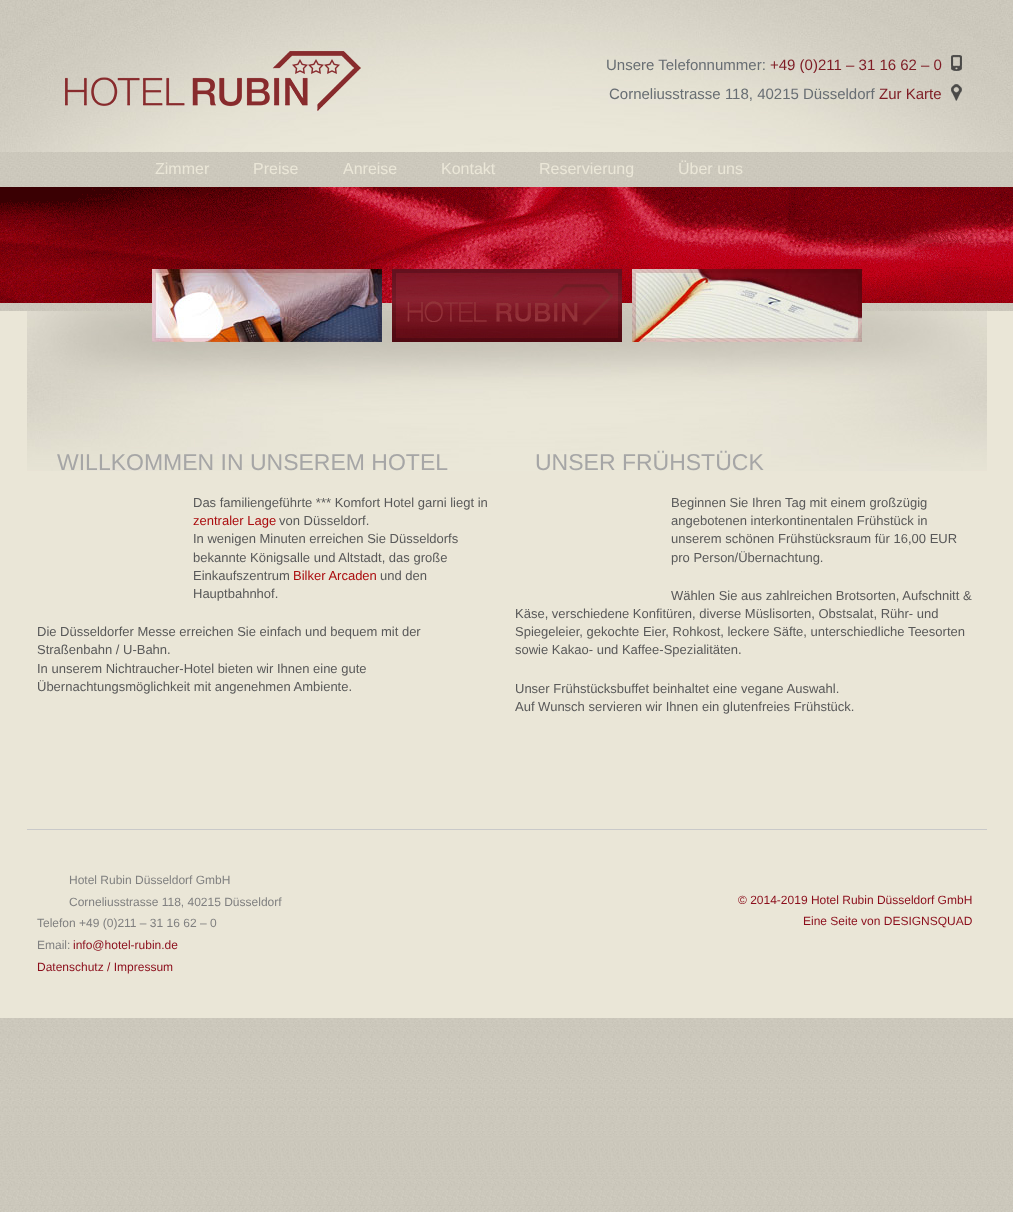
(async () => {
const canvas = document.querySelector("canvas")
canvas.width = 1013
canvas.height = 1212
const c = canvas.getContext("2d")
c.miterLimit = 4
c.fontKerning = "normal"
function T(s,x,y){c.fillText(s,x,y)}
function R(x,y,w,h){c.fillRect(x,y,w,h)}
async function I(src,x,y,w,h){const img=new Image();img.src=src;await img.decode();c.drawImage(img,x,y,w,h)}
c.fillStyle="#fff"
R(0,0,1013,1212)
await I("1.png",0,152,1013,1060)
await I("2.png",0,0,1013,152)
await I("3.png",65,51,296,60)
await I("4.png",951,55,11,16)
c.font="15px Liberation Sans"
c.fillStyle="#686e73"
T("Unsere Telefonnummer:",606,70)
c.fillStyle="#7e1b24"
T("+49 (0)211 – 31 16 62 – 0",770,70)
await I("5.png",951,84,11,17)
c.fillStyle="#686e73"
T("Corneliusstrasse 118, 40215 Düsseldorf",609,99)
c.fillStyle="#7e1b24"
T("Zur Karte",879,99)
c.font="16px Liberation Sans"
c.fillStyle="#ebe7d8"
T("Zimmer",155,174)
T("Preise",253,174)
T("Anreise",343,174)
T("Kontakt",441,174)
T("Reservierung",539,174)
T("Über uns",678,174)
await I("6.png",0,187,1013,116)
c.fillStyle="#eae6d7"
R(0,311,1013,707)
await I("7.png",27,311,960,160)
await I("8.png",152,269,230,73)
await I("9.png",392,269,230,73)
await I("10.png",632,269,230,73)
c.font="23px Liberation Sans"
c.fillStyle="#a6a6a6"
T("WILLKOMMEN IN UNSEREM HOTEL",57,470)
c.font="13px Liberation Sans"
c.fillStyle="#595959"
T("Das familiengeführte *** Komfort Hotel garni liegt in",193,507)
c.fillStyle="#aa0c0e"
T("zentraler Lage",193,525)
c.fillStyle="#595959"
T("von Düsseldorf.",279,525)
T("In wenigen Minuten erreichen Sie Düsseldorfs",193,543)
T("bekannte Königsalle und Altstadt, das große",193,562)
T("Einkaufszentrum",193,580)
c.fillStyle="#aa0c0e"
T("Bilker Arcaden",293,580)
c.fillStyle="#595959"
T("und den",380,580)
T("Hauptbahnhof.",193,598)
T("Die Düsseldorfer Messe erreichen Sie einfach und bequem mit der",37,636)
T("Straßenbahn / U-Bahn.",37,654)
T("In unserem Nichtraucher-Hotel bieten wir Ihnen eine gute",37,673)
T("Übernachtungsmöglichkeit mit angenehmen Ambiente.",37,691)
c.font="23px Liberation Sans"
c.fillStyle="#a6a6a6"
T("UNSER FRÜHSTÜCK",535,470)
c.font="13px Liberation Sans"
c.fillStyle="#595959"
T("Beginnen Sie Ihren Tag mit einem großzügig",671,507)
T("angebotenen interkontinentalen Frühstück in",671,525)
T("unserem schönen Frühstücksraum für 16,00 EUR",671,543)
T("pro Person/Übernachtung.",671,562)
T("Wählen Sie aus zahlreichen Brotsorten, Aufschnitt &",671,600)
T("Käse, verschiedene Konfitüren, diverse Müslisorten, Obstsalat, Rühr- und",515,618)
T("Spiegeleier, gekochte Eier, Rohkost, leckere Säfte, unterschiedliche Teesorten",515,636)
T("sowie Kakao- und Kaffee-Spezialitäten.",515,654)
T("Unser Frühstücksbuffet beinhaltet eine vegane Auswahl.",515,693)
T("Auf Wunsch servieren wir Ihnen ein glutenfreies Frühstück.",515,711)
c.fillStyle="#c9c9c9"
R(27,829,960,1)
c.font="12px Liberation Sans"
c.fillStyle="#808080"
T("Hotel Rubin Düsseldorf GmbH",69,884)
T("Corneliusstrasse 118, 40215 Düsseldorf",69,906)
T("Telefon +49 (0)211 – 31 16 62 – 0",37,927)
T("Email:",37,949)
c.fillStyle="#8b0d1b"
T("info@hotel-rubin.de",73,949)
T("Datenschutz / Impressum",37,971)
T("© 2014-2019 Hotel Rubin Düsseldorf GmbH",738,904)
T("Eine Seite von DESIGNSQUAD",803,925)
})()
